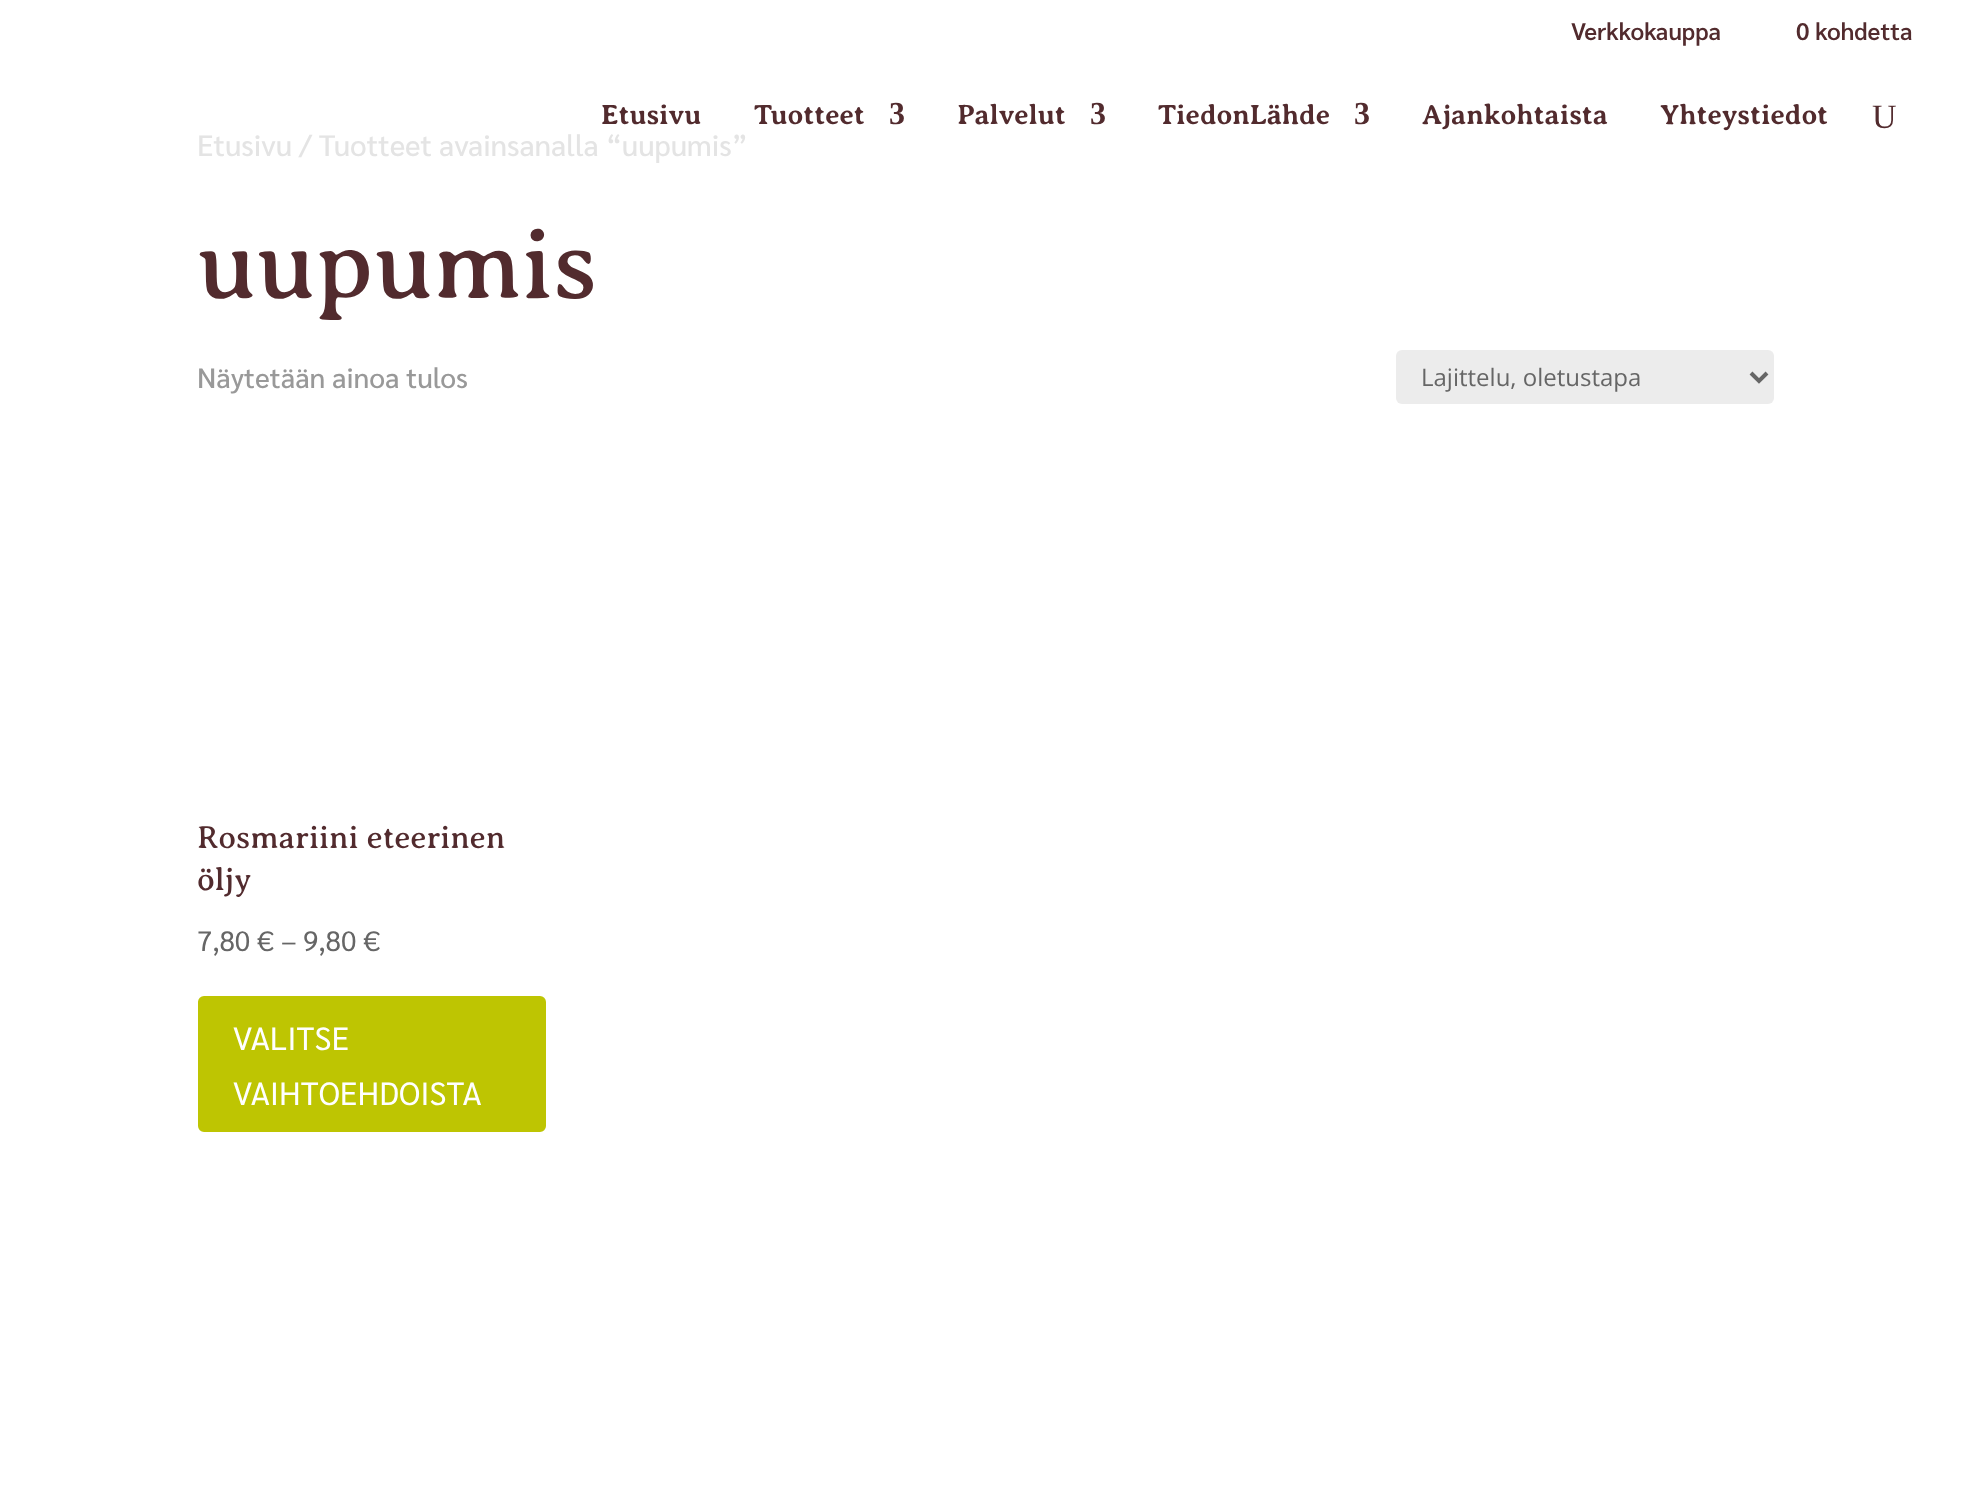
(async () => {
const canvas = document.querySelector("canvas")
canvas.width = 1971
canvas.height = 1492
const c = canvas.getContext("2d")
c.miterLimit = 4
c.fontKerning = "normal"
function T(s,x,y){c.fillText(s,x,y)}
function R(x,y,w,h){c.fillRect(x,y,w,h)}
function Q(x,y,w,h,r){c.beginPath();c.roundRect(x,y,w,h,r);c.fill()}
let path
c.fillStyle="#fff"
R(0,0,1971,1492)
c.font="600 24px Sarabun"
c.fillStyle="#522b2e"
T("Verkkokauppa",1571,40)
T("0 kohdetta",1796,40)
c.font="bold 28px Averia Serif Libre"
T("Etusivu",601,124)
T("Tuotteet",754,124)
c.font="bold 32px Liberation Serif"
T("3",889,124)
c.font="bold 28px Averia Serif Libre"
T("Palvelut",957,124)
c.font="bold 32px Liberation Serif"
T("3",1090,124)
c.font="bold 28px Averia Serif Libre"
T("TiedonLähde",1158,124)
c.font="bold 32px Liberation Serif"
T("3",1354,124)
c.font="bold 28px Averia Serif Libre"
T("Ajankohtaista",1422,124)
T("Yhteystiedot",1660,124)
c.font="34px Liberation Serif"
T("U",1872,128)
c.font="500 29.4px Sarabun"
c.fillStyle="#e4e4e4"
T("Etusivu / Tuotteet avainsanalla “uupumis”",197,156)
c.font="100px Averia Serif Libre"
c.fillStyle="#522b2e"
T("uupumis",197,298)
c.font="500 28px Sarabun"
c.fillStyle="#999"
T("Näytetään ainoa tulos",197,388)
c.fillStyle="#ececec"
Q(1396,350,378,54,6)
path = new Path2D("M1751 373l8 8l8-8")
c.strokeStyle="#666"
c.lineWidth=4
c.stroke(path)
c.font="24px Open Sans"
c.fillStyle="#666"
T("Lajittelu, oletustapa",1421,386)
c.font="32px Averia Serif Libre"
c.fillStyle="#522b2e"
T("Rosmariini eteerinen",197,848)
T("öljy",197,890)
c.font="28px Sarabun"
c.fillStyle="#666"
T("7,80 € – 9,80 €",197,951)
c.fillStyle="#bec502"
c.beginPath()
c.roundRect(200,998,344,132,4)
c.fill()
c.strokeStyle="#bec502"
c.stroke()
c.font="32px Sarabun"
c.fillStyle="#fff"
T("VALITSE",233,1050)
T("VAIHTOEHDOISTA",233,1105)
})()
